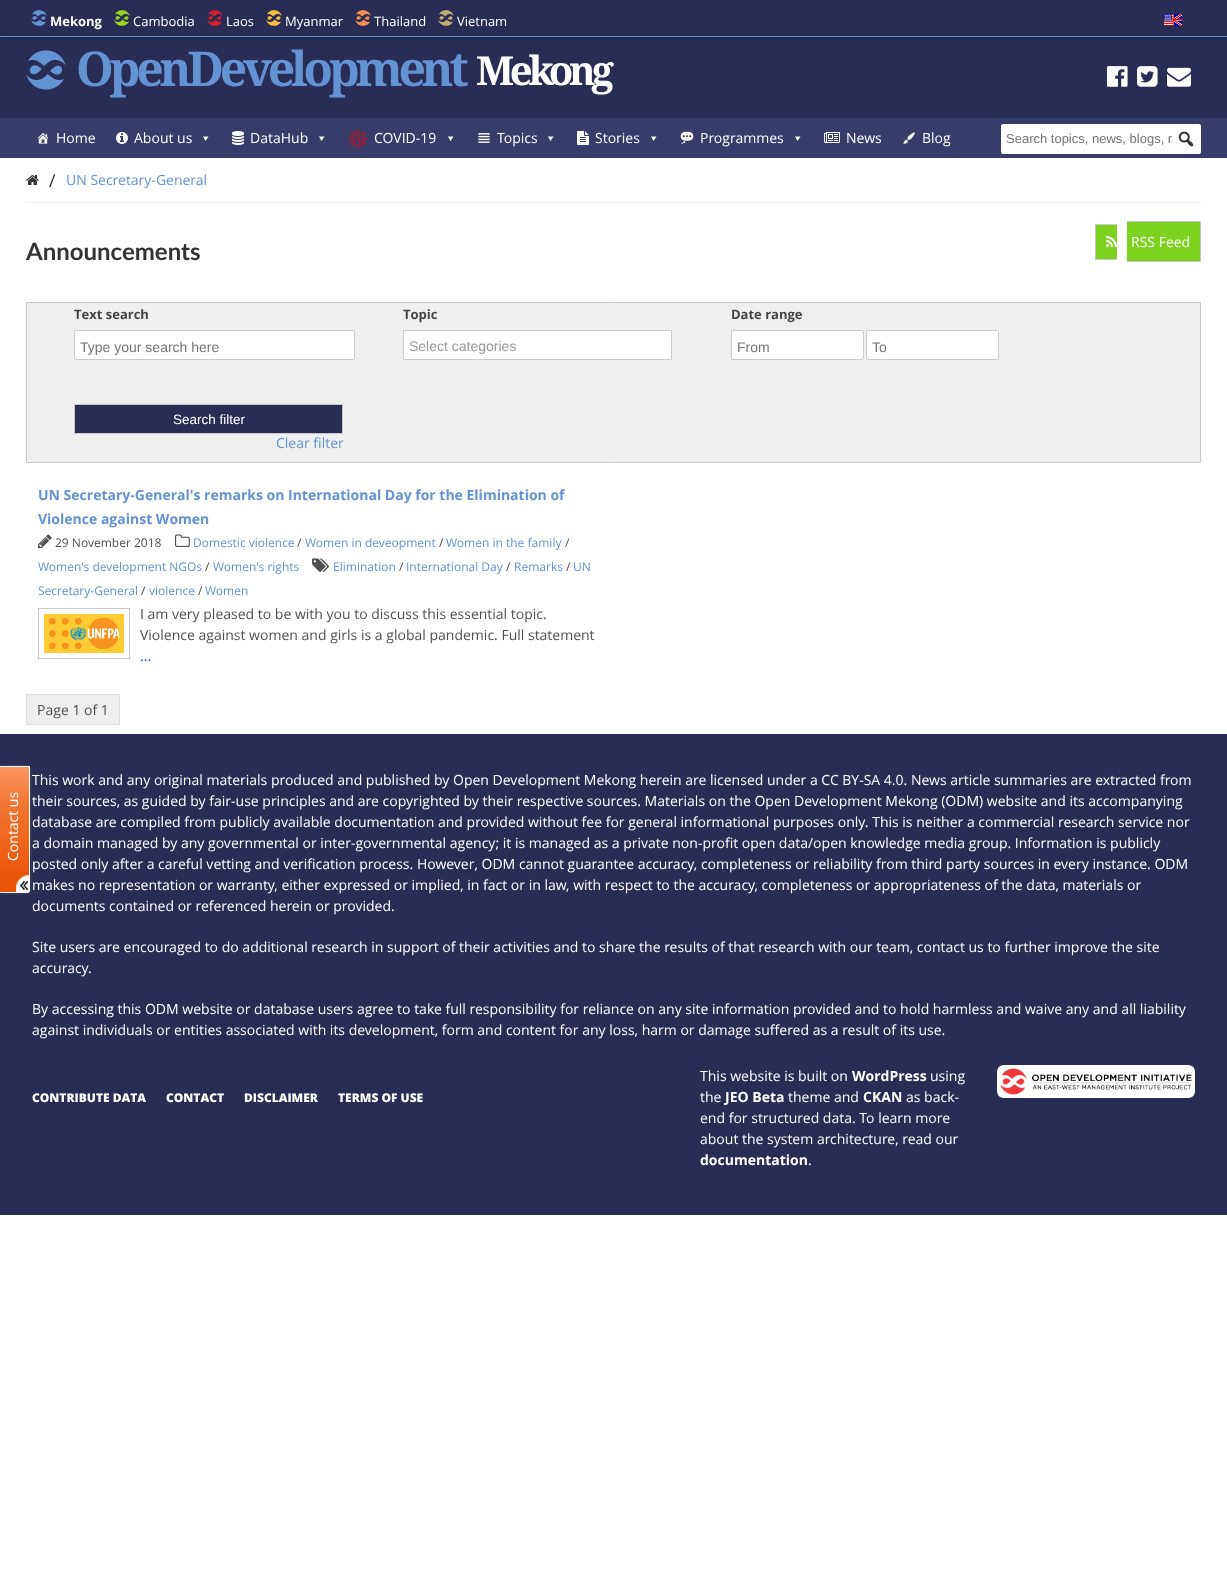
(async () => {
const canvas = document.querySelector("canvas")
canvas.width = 1227
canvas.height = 1596
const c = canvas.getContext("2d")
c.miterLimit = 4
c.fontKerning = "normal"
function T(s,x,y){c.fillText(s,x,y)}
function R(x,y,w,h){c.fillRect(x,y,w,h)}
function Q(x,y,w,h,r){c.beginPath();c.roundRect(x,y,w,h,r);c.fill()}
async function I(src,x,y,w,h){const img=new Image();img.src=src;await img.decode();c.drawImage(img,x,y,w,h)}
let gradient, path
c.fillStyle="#fff"
R(0,0,1227,1596)
c.fillStyle="#292d56"
R(0,37,1227,81)
await I("8.png",26,50,40,40)
c.fillStyle="#0000001a"
c.filter="blur(5px)"
c.beginPath()
c.rect(0,1,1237,37)
c.fill()
c.filter="none"
c.fillStyle="#292d56"
R(0,0,1227,36)
c.fillStyle="#6393d2"
R(0,36,1227,1)
await I("1.png",31,10,16,16)
c.font="bold 13px Open Sans"
c.fillStyle="#fff"
T("Mekong",50,26)
await I("2.png",114,10,16,16)
c.font="13px Open Sans"
T("Cambodia",133,26)
await I("3.png",207,10,16,16)
T("Laos",226,26)
await I("4.png",266,10,16,16)
T("Myanmar",285,26)
await I("5.png",355,10,16,16)
T("Thailand",374,26)
await I("6.png",438,10,16,16)
T("Vietnam",457,26)
await I("7.png",1164,14,18,12)
c.letterSpacing="-4.25px"
c.font="bold 48px Droid Serif"
c.fillStyle="#6393d2"
T("OpenDevelopment",76,86)
c.font="bold 40px Droid Serif"
c.fillStyle="#fff"
T("Mekong",476,85)
await I("9.png",1107,66,21,21)
await I("10.png",1137,66,21,21)
await I("11.png",1167,67,24,20)
c.fillStyle="#373c6a"
R(0,118,1227,40)
await I("12.png",37,132,12,12)
c.letterSpacing="0px"
c.font="14px Open Sans"
c.fillStyle="#fff"
T("Home",56,143)
await I("13.png",116,132,12,12)
T("About us",134,143)
path = new Path2D("M208.5 136.5l-3 4.5l-2.5-4.5z")
c.fill(path)
await I("14.png",232,131,12,14)
T("DataHub",250,143)
path = new Path2D("M324.5 136.5l-3 4.5l-2.5-4.5z")
c.fill(path)
await I("15.png",348,129,20,20)
T("COVID-19",374,143)
path = new Path2D("M453.5 136.5l-3 4.5l-2.5-4.5z")
c.fill(path)
await I("16.png",478,133,12,10)
T("Topics",497,143)
path = new Path2D("M553.5 136.5l-3 4.5l-2.5-4.5z")
c.fill(path)
await I("17.png",577,131,12,14)
T("Stories",595,143)
path = new Path2D("M656.5 136.5l-3 4.5l-2.5-4.5z")
c.fill(path)
await I("18.png",680,131,14,13)
T("Programmes",700,143)
path = new Path2D("M800.5 136.5l-3 4.5l-2.5-4.5z")
c.fill(path)
await I("19.png",824,132,16,11)
T("News",846,143)
await I("20.png",903,132,12,12)
T("Blog",922,143)
Q(1001,124,200,30,2)
c.font="13px Liberation Sans"
c.fillStyle="#757575"
T("Search topics, news, blogs, r",1006,143)
await I("21.png",1178,131,16,16)
c.fillStyle="#eee"
R(26,202,1175,1)
await I("22.png",26,175,13,10)
c.font="18px Open Sans"
c.fillStyle="#333"
T("/",49,187)
c.font="14px Open Sans"
c.fillStyle="#6393d2"
T("UN Secretary-General",66,185)
c.font="bold 24px Lato"
c.fillStyle="#333"
T("Announcements",26,260)
c.fillStyle="#7dd220"
R(1096,225,21,34)
c.fillStyle="#c8c8c8"
R(1095,224,22,1)
R(1095,259,22,1)
R(1095,224,1,36)
c.fillStyle="#7dd220"
R(1127,222,73,39)
c.fillStyle="#c8c8c8"
R(1127,221,74,1)
R(1200,221,1,41)
R(1127,261,74,1)
await I("23.png",1106,236,11,11)
c.font="14px Open Sans"
c.fillStyle="#fff"
T("RSS Feed",1131,247)
c.fillStyle="#efefef"
c.beginPath()
c.rect(26.5,302.5,1174,160)
c.fill()
c.strokeStyle="#c8c8c8"
c.stroke()
c.font="bold 13px Open Sans"
c.fillStyle="#444"
T("Text search",74,319)
c.fillStyle="#fff"
c.beginPath()
c.roundRect(74.5,330.5,280,29,1.5)
c.fill()
c.strokeStyle="#ccc"
c.stroke()
c.font="14px Liberation Sans"
c.fillStyle="#757575"
T("Type your search here",80,352)
c.font="bold 13px Open Sans"
c.fillStyle="#444"
T("Topic",403,319)
c.fillStyle="#fff"
c.beginPath()
c.rect(403.5,330.5,268,29)
c.fill()
c.stroke()
c.font="14px Liberation Sans"
c.fillStyle="#999"
T("Select categories",409,351)
c.font="bold 13px Open Sans"
c.fillStyle="#444"
T("Date range",731,319)
c.fillStyle="#fff"
c.beginPath()
c.roundRect(731.5,330.5,132,29,1.5)
c.fill()
c.stroke()
c.font="14px Liberation Sans"
c.fillStyle="#757575"
T("From",737,352)
c.fillStyle="#fff"
c.beginPath()
c.roundRect(866.5,330.5,132,29,1.5)
c.fill()
c.stroke()
c.fillStyle="#757575"
T("To",872,352)
c.fillStyle="#292d56"
c.beginPath()
c.rect(74.5,404.5,268,29)
c.fill()
c.strokeStyle="#c8c8c8"
c.stroke()
c.font="13.5px Liberation Sans"
c.fillStyle="#fff"
T("Search filter",173,424)
c.font="14px Open Sans"
c.fillStyle="#6393d2"
T("Clear filter",276,448)
c.font="bold 14px Open Sans"
T("UN Secretary-General's remarks on International Day for the Elimination of",38,500)
T("Violence against Women",38,524)
await I("24.png",175,534,15,13)
c.font="12px Open Sans"
T("Domestic violence",193,547)
c.fillStyle="#505050"
T("/",297,547)
c.fillStyle="#6393d2"
T("Women in deveopment",305,547)
c.fillStyle="#505050"
T("/",439,547)
c.fillStyle="#6393d2"
T("Women in the family",446,547)
c.fillStyle="#505050"
T("/",565,547)
c.fillStyle="#6393d2"
T("Women's development NGOs",38,571)
c.fillStyle="#505050"
T("/",205,571)
c.fillStyle="#6393d2"
T("Women's rights",213,571)
await I("25.png",38,534,14,15)
c.fillStyle="#505050"
T("29 November 2018",55,547)
await I("26.png",312,558,17,14)
c.fillStyle="#6393d2"
T("Elimination",333,571)
c.fillStyle="#505050"
T("/",399,571)
c.fillStyle="#6393d2"
T("International Day",406,571)
c.fillStyle="#505050"
T("/",506,571)
c.fillStyle="#6393d2"
T("Remarks",514,571)
c.fillStyle="#505050"
T("/",566,571)
c.fillStyle="#6393d2"
T("UN",573,571)
T("Secretary-General",38,595)
c.fillStyle="#505050"
T("/",141,595)
c.fillStyle="#6393d2"
T("violence",149,595)
c.fillStyle="#505050"
T("/",198,595)
c.fillStyle="#6393d2"
T("Women",205,595)
c.strokeRect(38.5,608.5,91,50)
await I("27.png",44,614,80,39)
c.font="14px Open Sans"
c.fillStyle="#505050"
T("I am very pleased to be with you to discuss this essential topic.",140,619)
T("Violence against women and girls is a global pandemic. Full statement",140,640)
c.fillStyle="#06c"
T("...",140,661)
c.fillStyle="#eee"
c.beginPath()
c.rect(26.5,694.5,93,30)
c.fill()
c.strokeStyle="#ddd"
c.stroke()
c.fillStyle="#505050"
T("Page 1 of 1",37,715)
c.fillStyle="#292d56"
R(0,734,1227,481)
c.fillStyle="#555"
c.filter="blur(1.5px)"
c.beginPath()
c.roundRect(-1,766,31,127,2)
c.fill()
c.filter="none"
gradient = c.createLinearGradient(14,767,15,892)
gradient.addColorStop(0,"#feccb1")
gradient.addColorStop(0,"#fb955e")
gradient.addColorStop(.32,"#f17432")
gradient.addColorStop(.9,"#ea5507")
c.fillStyle = gradient
R(0,767,30,125)
path = new Path2D("M-.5 766.5h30v124.5c0 1-.5 1.5-1.5 1.5h-27c-1 0-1.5-.5-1.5-1.5z")
c.strokeStyle="#fff"
c.stroke(path)
c.fillStyle="#fff"
c.save()
c.translate(18,861)
c.rotate(-90 * Math.PI / 180)
c.fillText("Contact us",0,0)
c.restore()
await I("28.png",16,875,13,17)
T("This work and any original materials produced and published by Open Development Mekong herein are licensed under a CC BY-SA 4.0. News article summaries are extracted from",32,785)
T("their sources, as guided by fair-use principles and are copyrighted by their respective sources. Materials on the Open Development Mekong (ODM) website and its accompanying",32,806)
T("database are compiled from publicly available documentation and provided without fee for general informational purposes only. This is neither a commercial research service nor",32,827)
T("a domain managed by any governmental or inter-governmental agency; it is managed as a private non-profit open data/open knowledge media group. Information is publicly",32,848)
T("posted only after a careful vetting and verification process. However, ODM cannot guarantee accuracy, completeness or reliability from third party sources in every instance. ODM",32,869)
T("makes no representation or warranty, either expressed or implied, in fact or in law, with respect to the accuracy, completeness or appropriateness of the data, materials or",32,890)
T("documents contained or referenced herein or provided.",32,911)
T("Site users are encouraged to do additional research in support of their activities and to share the results of that research with our team, contact us to further improve the site",32,952)
T("accuracy.",32,973)
T("By accessing this ODM website or database users agree to take full responsibility for reliance on any site information provided and to hold harmless and waive any and all liability",32,1014)
T("against individuals or entities associated with its development, form and content for any loss, harm or damage suffered as a result of its use.",32,1035)
c.font="800 12px Open Sans"
T("CONTRIBUTE DATA",32,1102)
T("CONTACT",166,1102)
T("DISCLAIMER",244,1102)
T("TERMS OF USE",338,1102)
c.font="14px Open Sans"
T("This website is built on",700,1081)
c.font="bold 14px Open Sans"
T("WordPress",852,1081)
c.font="14px Open Sans"
T("using",930,1081)
T("the",700,1102)
c.font="bold 14px Open Sans"
T("JEO Beta",725,1102)
c.font="14px Open Sans"
T("theme and",788,1102)
c.font="bold 14px Open Sans"
T("CKAN",863,1102)
c.font="14px Open Sans"
T("as back-",906,1102)
T("end for structured data. To learn more",700,1123)
T("about the system architecture, read our",700,1144)
c.font="bold 14px Open Sans"
T("documentation",700,1165)
c.font="14px Open Sans"
T(".",808,1165)
await I("29.png",997,1065,198,33)
})()
